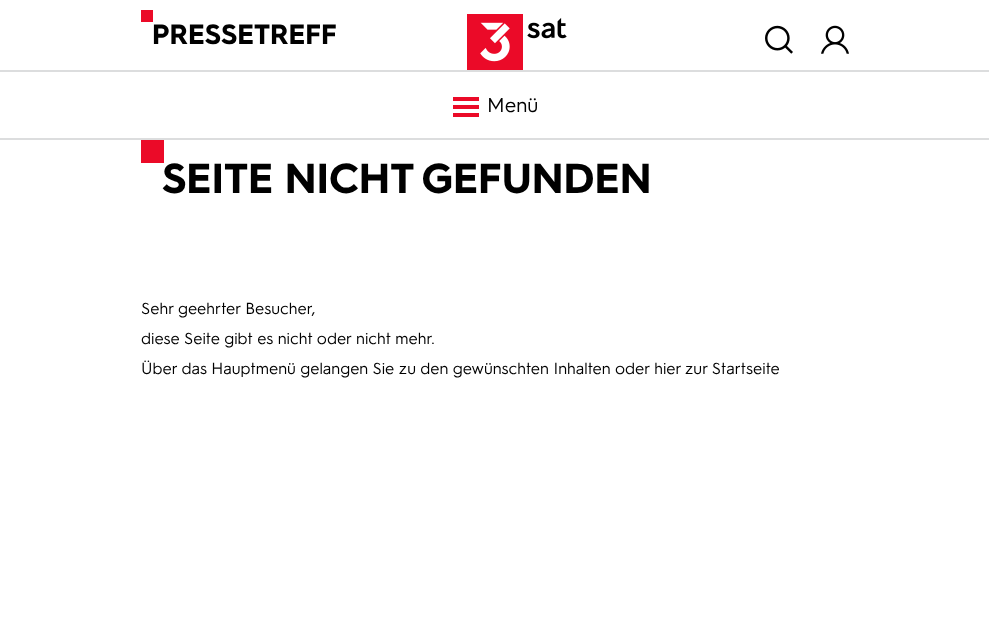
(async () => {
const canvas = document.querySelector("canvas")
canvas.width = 989
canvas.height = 619
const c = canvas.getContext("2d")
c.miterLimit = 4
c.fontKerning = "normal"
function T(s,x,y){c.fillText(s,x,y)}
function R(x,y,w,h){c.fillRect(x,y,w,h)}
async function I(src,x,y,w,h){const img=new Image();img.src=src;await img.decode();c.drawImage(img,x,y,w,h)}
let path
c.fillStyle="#fff"
R(0,0,989,619)
c.fillStyle="#dcddde"
R(0,70,989,2)
c.fillStyle="#eb0a28"
R(141,10,12,12)
c.font="bold 28px '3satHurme'"
c.fillStyle="#000"
T("PRESSETREFF",152,44)
await I("1.png",467,14,100,56)
await I("2.png",765,25,28,29)
await I("3.png",821,25,28,29)
c.fillStyle="#dcddde"
R(0,138,989,2)
path = new Path2D("M455 99h22m-22 8h22m-22 8h22")
c.strokeStyle="#eb0a28"
c.lineWidth=4
c.lineCap="square"
c.stroke(path)
c.font="20px '3satHurme'"
c.fillStyle="#000"
T("Menü",487,112)
c.fillStyle="#eb0a28"
R(141,140,23,23)
c.font="bold 42px '3satHurme'"
c.fillStyle="#000"
T("SEITE NICHT GEFUNDEN",162,193)
c.font="16px '3satHurme'"
T("Sehr geehrter Besucher,",141,314)
T("diese Seite gibt es nicht oder nicht mehr.",141,344)
T("Über das Hauptmenü gelangen Sie zu den gewünschten Inhalten oder hier",141,374)
T("zur Startseite",685,374)
})()
